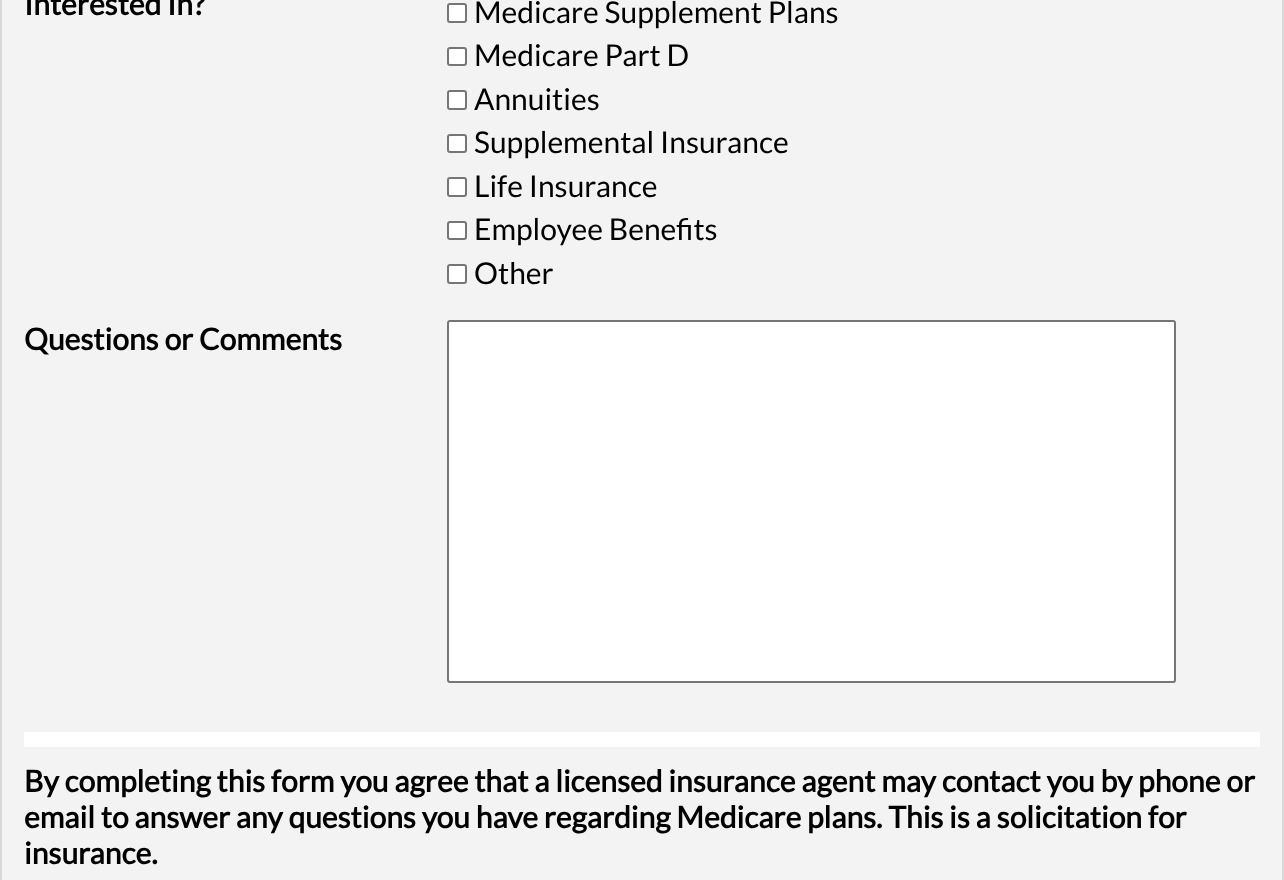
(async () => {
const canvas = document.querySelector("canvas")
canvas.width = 1284
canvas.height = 880
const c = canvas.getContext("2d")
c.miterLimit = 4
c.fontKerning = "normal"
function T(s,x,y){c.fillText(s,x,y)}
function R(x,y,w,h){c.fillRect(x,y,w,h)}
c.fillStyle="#f3f3f3"
R(0,0,1284,880)
c.strokeStyle="#d8d8d8"
c.lineWidth=2
c.strokeRect(1,-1,1282,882)
c.font="bold 30px Lato"
c.fillStyle="#000"
T("Interested In?",24,15)
c.fillStyle="#fff"
c.beginPath()
c.roundRect(448,4,18,18,2)
c.fill()
c.strokeStyle="#767676"
c.stroke()
c.font="30px Lato"
c.fillStyle="#000"
T("Medicare Supplement Plans",474,23)
c.fillStyle="#fff"
c.beginPath()
c.roundRect(448,48,18,17,2)
c.fill()
c.stroke()
c.fillStyle="#000"
T("Medicare Part D",474,66)
c.fillStyle="#fff"
c.beginPath()
c.roundRect(448,91,18,18,2)
c.fill()
c.stroke()
c.fillStyle="#000"
T("Annuities",474,110)
c.fillStyle="#fff"
c.beginPath()
c.roundRect(448,135,18,17,2)
c.fill()
c.stroke()
c.fillStyle="#000"
T("Supplemental Insurance",474,153)
c.fillStyle="#fff"
c.beginPath()
c.roundRect(448,178,18,18,2)
c.fill()
c.stroke()
c.fillStyle="#000"
T("Life Insurance",474,197)
c.fillStyle="#fff"
c.beginPath()
c.roundRect(448,222,18,17,2)
c.fill()
c.stroke()
c.fillStyle="#000"
T("Employee Benefits",474,240)
c.fillStyle="#fff"
c.beginPath()
c.roundRect(448,265,18,18,2)
c.fill()
c.stroke()
c.fillStyle="#000"
T("Other",474,284)
c.font="bold 30px Lato"
T("Questions or Comments",24,350)
c.fillStyle="#fff"
c.beginPath()
c.roundRect(448,321,727,361,2)
c.fill()
c.stroke()
R(24,732,1236,15)
c.fillStyle="#000"
T("By completing this form you agree that a licensed insurance agent may contact you by phone or",24,792)
T("email to answer any questions you have regarding Medicare plans. This is a solicitation for",24,828)
T("insurance.",24,864)
})()
